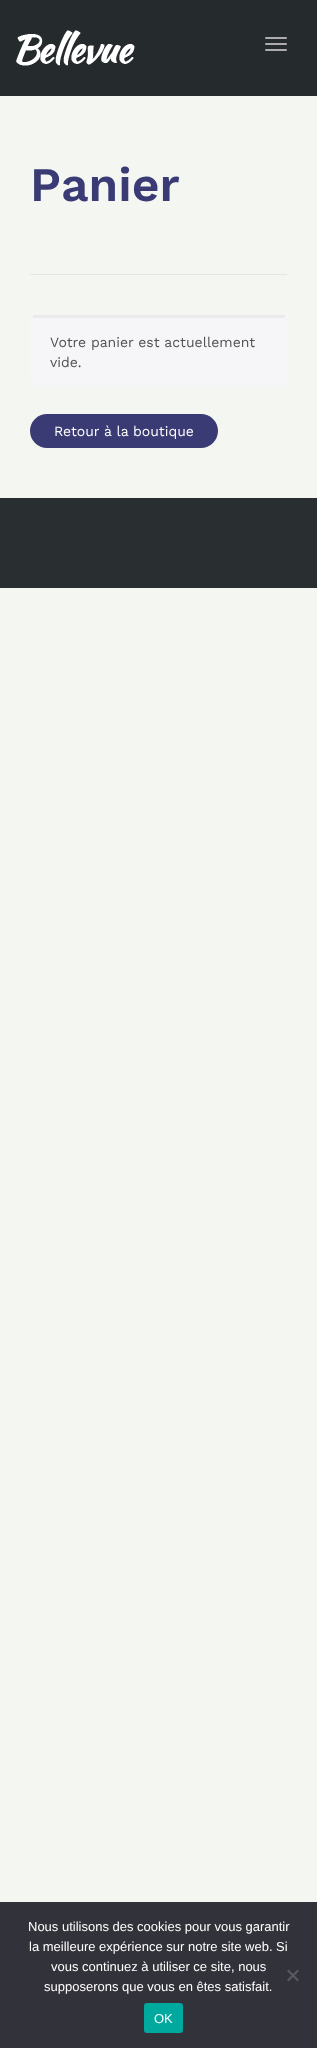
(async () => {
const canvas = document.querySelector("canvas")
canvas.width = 317
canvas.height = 2048
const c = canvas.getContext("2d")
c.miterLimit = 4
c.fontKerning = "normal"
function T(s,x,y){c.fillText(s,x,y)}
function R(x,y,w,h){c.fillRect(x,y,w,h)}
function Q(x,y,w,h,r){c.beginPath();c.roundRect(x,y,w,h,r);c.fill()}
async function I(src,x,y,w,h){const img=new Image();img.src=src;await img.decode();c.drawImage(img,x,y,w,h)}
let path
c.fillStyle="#f4f6f2"
R(0,0,317,2048)
c.fillStyle="#252b2d"
R(0,0,317,96)
await I("1.png",16,30,119,36)
c.fillStyle="#acacac"
Q(265,37,22,2,1)
Q(265,43,22,2,1)
Q(265,49,22,2,1)
c.fillStyle="#e6e6e6"
R(30,274,257,1)
c.font="600 48px Work Sans"
c.fillStyle="#3a3b74"
T("Panier",30,201)
c.fillStyle="#f6f5f8"
Q(30,315,257,71,5)
c.fillStyle="#ebe9eb"
R(33,315,252,3)
c.font="14px Work Sans"
c.fillStyle="#515151"
T("Votre panier est actuellement",50,347)
T("vide.",50,367)
c.fillStyle="#3a3b74"
Q(30,414,188,34,17)
c.fillStyle="#fff"
T("Retour à la boutique",54,436)
c.fillStyle="#292e31"
R(0,498,317,90)
c.fillStyle="#32323a"
R(0,1902,317,146)
c.font="13px Liberation Sans"
c.fillStyle="#fff"
T("Nous utilisons des cookies pour vous garantir",28,1931)
T("la meilleure expérience sur notre site web. Si",29,1951)
T("vous continuez à utiliser ce site, nous",51,1971)
T("supposerons que vous en êtes satisfait.",44,1991)
c.fillStyle="#59595d"
path = new Path2D("M297.5 1969.5l1.5 1.5l-10.5 10.5l-1.5-1.5z")
c.fill(path)
path = new Path2D("M287 1971l1.5-1.5l10.5 10.5l-1.5 1.5z")
c.fill(path)
c.fillStyle="#00a99d"
Q(144,2003,39,30,3)
c.fillStyle="#fff"
T("OK",154,2023)
})()
